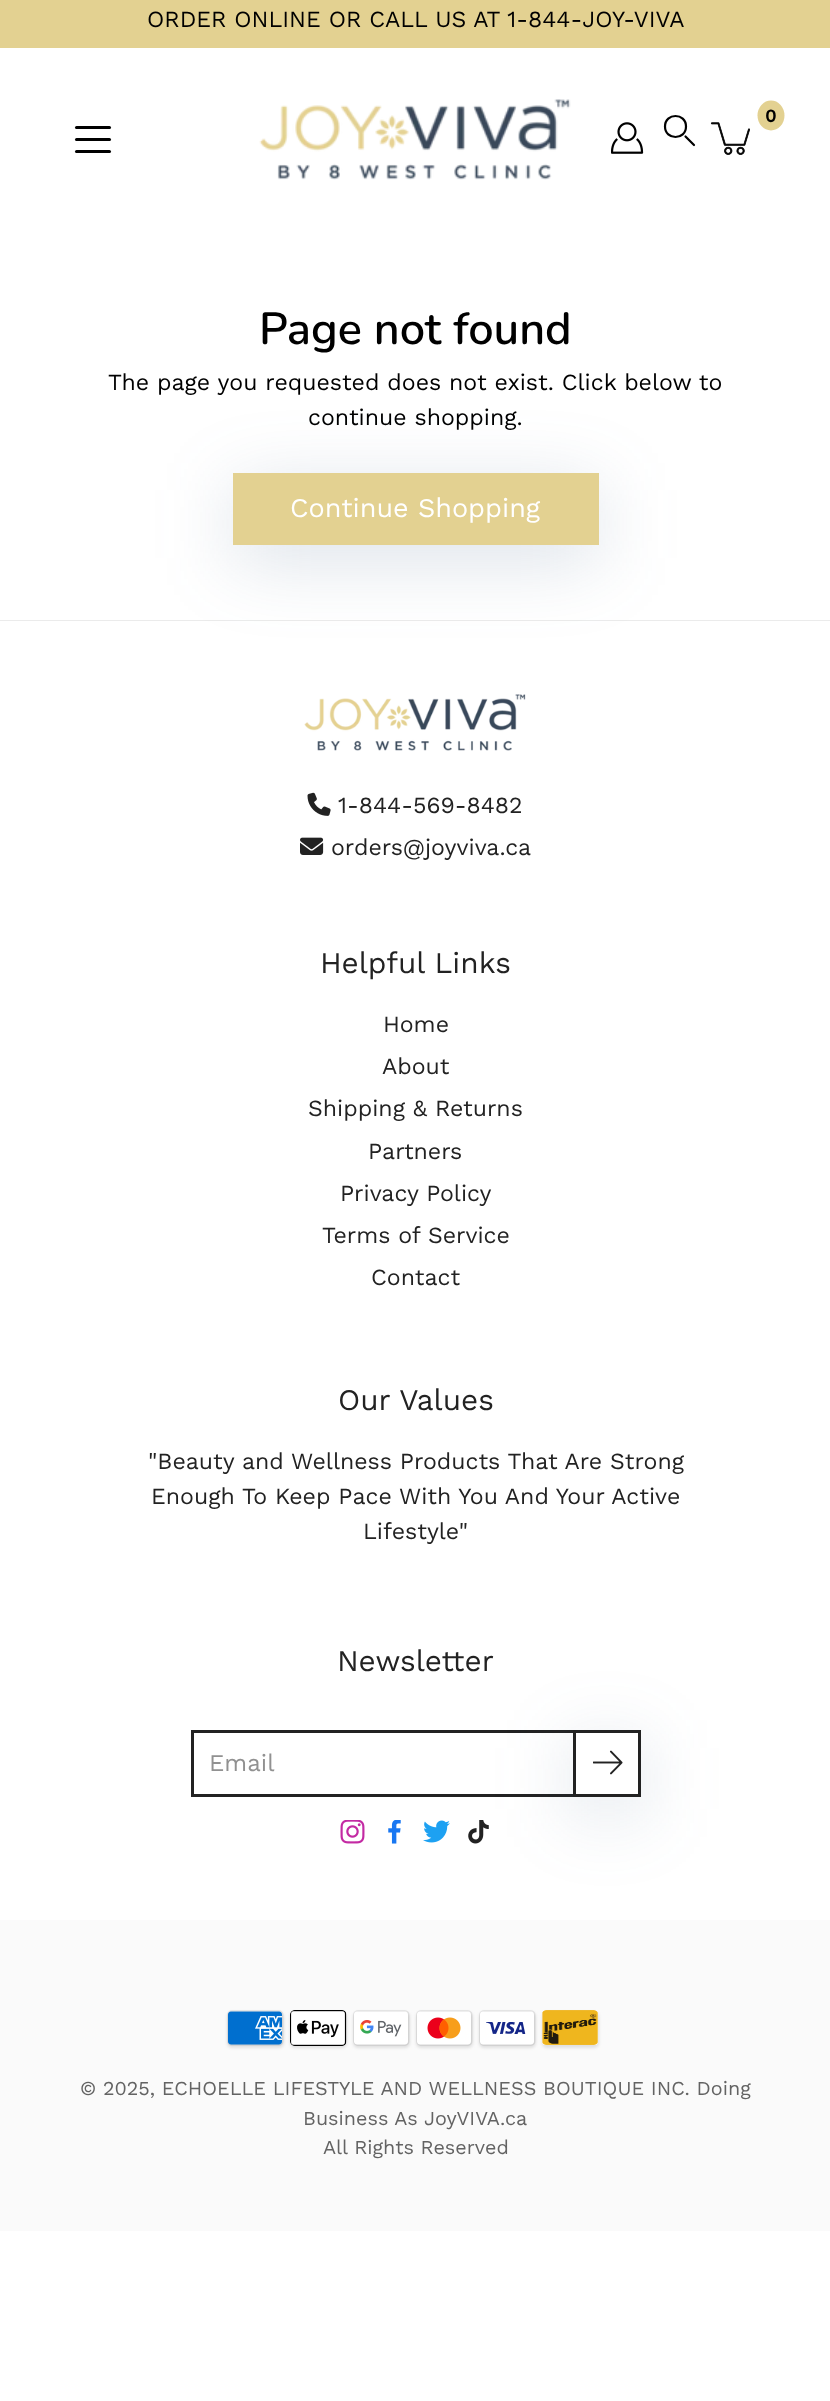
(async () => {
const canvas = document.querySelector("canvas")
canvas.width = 830
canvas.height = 2401
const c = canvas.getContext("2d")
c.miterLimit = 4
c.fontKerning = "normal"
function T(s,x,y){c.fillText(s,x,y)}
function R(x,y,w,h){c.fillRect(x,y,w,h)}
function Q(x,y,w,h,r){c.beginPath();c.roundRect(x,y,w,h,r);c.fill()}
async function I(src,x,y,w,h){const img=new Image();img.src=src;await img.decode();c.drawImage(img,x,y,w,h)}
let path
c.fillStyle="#fff"
R(0,0,830,2401)
c.fillStyle="#e3d191"
R(0,0,830,48)
c.font="23.1px Work Sans"
c.fillStyle="#000"
T("ORDER ONLINE OR CALL US AT 1-844-JOY-VIVA",147,27)
await I("1.png",259,99,312,81)
Q(75,138,36,3,1.5)
Q(75,126,36,3,1.5)
Q(75,150,36,3,1.5)
await I("2.png",611,122,33,32)
path = new Path2D("M686 126.5c0 14-21 14-21 0c0-14 21-14 21 0z")
c.strokeStyle="#000"
c.lineWidth=2.2
c.stroke(path)
path = new Path2D("M685.5 136.5l8.5 8.5")
c.lineCap="round"
c.stroke(path)
c.fillStyle="#e3d191"
c.beginPath()
c.ellipse(771,115.5,13.5,15,0,0,7)
c.fill()
c.font="bold 18px Work Sans"
c.fillStyle="#000"
T("0",765,122)
await I("3.png",710,122,40,33)
c.font="600 45px Nunito"
T("Page not found",259,344)
c.font="23.1px Work Sans"
T("The page you requested does not exist. Click below to",108,390)
T("continue shopping.",308,425)
c.fillStyle="#ebebeb"
R(0,620,830,1)
c.fillStyle="#49698a33"
c.filter="blur(37.5px)"
c.beginPath()
c.rect(233,488,366,72)
c.fill()
c.filter="none"
c.fillStyle="#e3d191"
R(233,473,366,72)
c.font="27px Work Sans"
c.fillStyle="#fff"
T("Continue Shopping",290,517)
await I("4.png",304,694,222,57)
await I("5.png",307,792,24,24)
c.font="23.1px Work Sans"
c.fillStyle="#222"
T("1-844-569-8482",338,813)
await I("6.png",300,837,24,18)
T("orders@joyviva.ca",331,855)
c.font="29.75px Work Sans"
T("Helpful Links",320,973)
c.font="23.1px Work Sans"
T("Home",383,1032)
T("About",382,1074)
T("Shipping & Returns",308,1116)
T("Partners",368,1159)
T("Privacy Policy",340,1201)
T("Terms of Service",322,1243)
T("Contact",371,1285)
c.font="29.75px Work Sans"
T("Our Values",338,1410)
c.font="23.1px Work Sans"
T("\"Beauty and Wellness Products That Are Strong",148,1469)
T("Enough To Keep Pace With You And Your Active",151,1504)
T("Lifestyle\"",363,1539)
c.font="29.75px Work Sans"
T("Newsletter",337,1671)
c.strokeStyle="#222"
c.lineWidth=3
c.strokeRect(192.5,1731.5,447,64)
c.font="24px Work Sans"
c.fillStyle="#919191"
T("Email",209,1771)
await I("11.png",468,1820,21,24)
c.fillStyle="#fafafa"
R(0,1920,830,311)
c.save()
path = new Path2D("M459 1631h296v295h-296zm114 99h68v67h-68z")
c.clip(path,"evenodd")
c.fillStyle="#49698a33"
c.filter="blur(37.5px)"
c.beginPath()
c.rect(573,1745,68,67)
c.fill()
c.filter="none"
c.restore()
c.strokeRect(574.5,1731.5,65,64)
await I("7.png",593,1750,30,25)
await I("8.png",340,1820,25,24)
await I("9.png",388,1820,13,24)
await I("10.png",423,1820,27,23)
c.fillStyle="#0000001a"
c.filter="blur(1.5px)"
c.beginPath()
c.roundRect(227,2012,57,36,5)
c.fill()
c.filter="none"
await I("12.png",227,2010,57,36)
c.filter="blur(1.5px)"
c.beginPath()
c.roundRect(290,2012,57,36,5)
c.fill()
c.filter="none"
await I("13.png",290,2010,57,36)
c.filter="blur(1.5px)"
c.beginPath()
c.roundRect(353,2012,57,36,5)
c.fill()
c.filter="none"
await I("14.png",353,2010,57,36)
c.filter="blur(1.5px)"
c.beginPath()
c.roundRect(416,2012,57,36,5)
c.fill()
c.filter="none"
await I("15.png",416,2010,57,36)
c.filter="blur(1.5px)"
c.beginPath()
c.roundRect(479,2012,57,36,5)
c.fill()
c.filter="none"
await I("16.png",479,2010,57,36)
c.filter="blur(1.5px)"
c.beginPath()
c.roundRect(542,2012,57,36,5)
c.fill()
c.filter="none"
await I("17.png",542,2010,56,35)
c.font="19.8px Work Sans"
c.fillStyle="#636363"
T("© 2025, ECHOELLE LIFESTYLE AND WELLNESS BOUTIQUE INC. Doing",80,2095)
T("Business As JoyVIVA.ca",303,2125)
T("All Rights Reserved",323,2154)
})()
